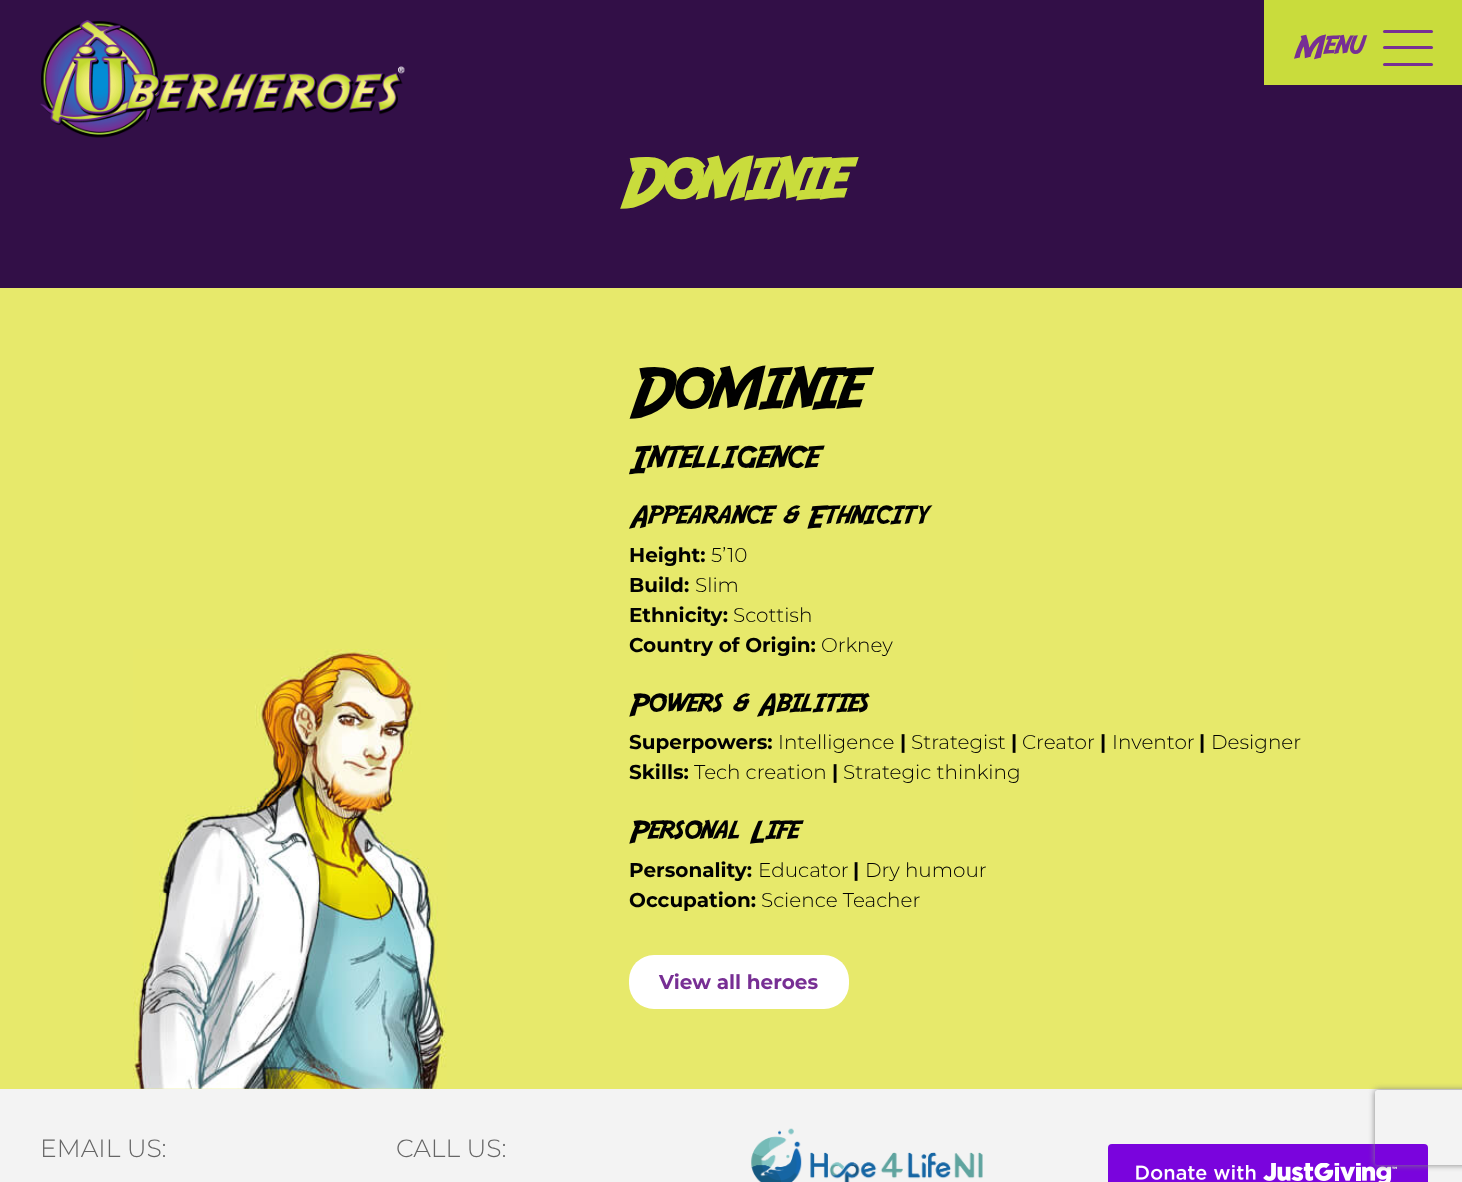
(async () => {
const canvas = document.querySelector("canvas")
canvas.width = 1462
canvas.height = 1182
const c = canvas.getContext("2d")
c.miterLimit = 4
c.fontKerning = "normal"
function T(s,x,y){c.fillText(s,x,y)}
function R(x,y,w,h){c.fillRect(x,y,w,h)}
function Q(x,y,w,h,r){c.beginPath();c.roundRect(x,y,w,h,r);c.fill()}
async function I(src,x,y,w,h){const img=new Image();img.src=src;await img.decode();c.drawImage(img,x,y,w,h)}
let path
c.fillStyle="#320f47"
R(0,0,1462,1182)
await I("1.png",40,20,365,118)
c.fillStyle="#c9dc3c"
R(1264,0,198,85)
c.font="31.25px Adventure"
c.fillStyle="#772f94"
T("Menu",1294,59)
Q(1383,46,50,3,1.5)
Q(1383,30,50,3,1.5)
Q(1383,63,50,3,1.5)
c.font="bold 67.5px Adventure"
c.fillStyle="#c9dc3c"
T("Dominie",620,210)
c.fillStyle="#e7e96b"
R(0,288,1462,801)
await I("2.png",133,649,314,440)
c.font="70px Adventure"
c.fillStyle="#010101"
T("Dominie",629,420)
c.font="37.5px Adventure"
T("Intelligence",629,474)
c.font="31.25px Adventure"
T("Appearance & Ethnicity",629,529)
c.font="bold 20px Montserrat"
T("Height:",629,562)
c.font="300 20px Montserrat"
T("5’10",711,562)
c.font="bold 20px Montserrat"
T("Build:",629,592)
c.font="300 20px Montserrat"
T("Slim",695,592)
c.font="bold 20px Montserrat"
T("Ethnicity:",629,622)
c.font="300 20px Montserrat"
T("Scottish",733,622)
c.font="bold 20px Montserrat"
T("Country of Origin:",629,652)
c.font="300 20px Montserrat"
T("Orkney",821,652)
c.font="31.25px Adventure"
T("Powers & Abilities",629,717)
c.font="bold 20px Montserrat"
T("Superpowers:",629,749)
c.font="300 20px Montserrat"
T("Intelligence",778,749)
c.font="bold 20px Montserrat"
T("|",900,749)
c.font="300 20px Montserrat"
T("Strategist",911,749)
c.font="bold 20px Montserrat"
T("|",1011,749)
c.font="300 20px Montserrat"
T("Creator",1022,749)
c.font="bold 20px Montserrat"
T("|",1100,749)
c.font="300 20px Montserrat"
T("Inventor",1112,749)
c.font="bold 20px Montserrat"
T("|",1199,749)
c.font="300 20px Montserrat"
T("Designer",1211,749)
c.font="bold 20px Montserrat"
T("Skills:",629,779)
c.font="300 20px Montserrat"
T("Tech creation",694,779)
c.font="bold 20px Montserrat"
T("|",832,779)
c.font="300 20px Montserrat"
T("Strategic thinking",843,779)
c.font="31.25px Adventure"
T("Personal Life",629,844)
c.font="bold 20px Montserrat"
T("Personality:",629,877)
c.font="300 20px Montserrat"
T("Educator",758,877)
c.font="bold 20px Montserrat"
T("|",853,877)
c.font="300 20px Montserrat"
T("Dry humour",865,877)
c.font="bold 20px Montserrat"
T("Occupation:",629,907)
c.font="300 20px Montserrat"
T("Science Teacher",761,907)
c.fillStyle="#fff"
Q(629,955,220,54,25)
c.font="bold 20px Montserrat"
c.fillStyle="#772f94"
T("View all heroes",659,989)
c.fillStyle="#f3f3f3"
R(0,1089,1462,93)
c.font="300 25px Montserrat"
c.fillStyle="#666"
T("EMAIL US:",40,1157)
T("CALL US:",396,1157)
await I("3.png",751,1128,232,54)
c.fillStyle="#7a04dd"
Q(1108,1144,320,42,4)
await I("4.png",1136,1163,261,19)
c.save()
path = new Path2D("M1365 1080h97v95h-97zm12.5 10h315c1.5 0 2.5 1 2.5 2.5v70c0 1.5-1 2.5-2.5 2.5h-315c-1.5 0-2.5-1-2.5-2.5v-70c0-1.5 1-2.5 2.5-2.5z")
c.clip(path,"evenodd")
c.fillStyle="#808080"
c.filter="blur(3px)"
c.beginPath()
c.roundRect(1375,1090,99,75,2.5)
c.fill()
c.filter="none"
c.restore()
})()
